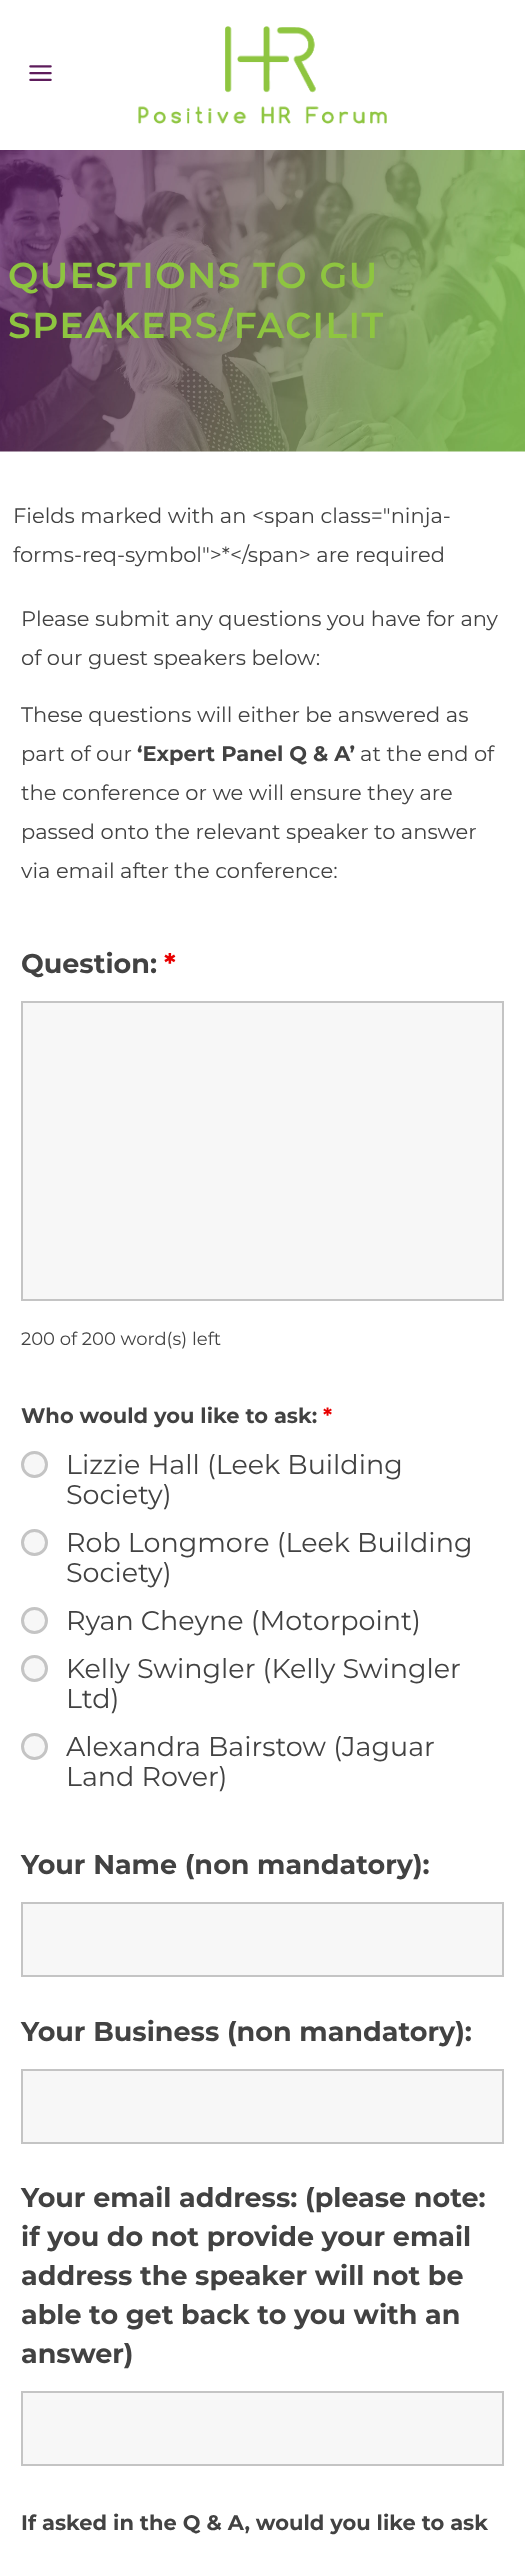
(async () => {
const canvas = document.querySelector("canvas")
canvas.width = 525
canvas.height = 2552
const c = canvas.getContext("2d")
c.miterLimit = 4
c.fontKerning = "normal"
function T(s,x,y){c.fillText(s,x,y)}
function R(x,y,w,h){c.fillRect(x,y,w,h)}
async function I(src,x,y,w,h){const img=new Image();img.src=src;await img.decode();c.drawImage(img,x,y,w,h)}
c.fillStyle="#fff"
R(0,0,525,2552)
await I("1.png",29,65,23,16)
await I("2.png",138,26,249,98)
await I("3.png",0,150,525,302)
c.letterSpacing="1.5px"
c.font="600 36px Montserrat"
c.fillStyle="#8ec540"
T("QUESTIONS TO GU",8,288)
T("SPEAKERS/FACILIT",8,338)
c.letterSpacing="0px"
c.font="21px Montserrat"
c.fillStyle="#424242"
T("Fields marked with an <span class=\"ninja-",13,523)
T("forms-req-symbol\">*<\/span> are required",13,562)
T("Please submit any questions you have for any",21,626)
T("of our guest speakers below:",21,665)
T("These questions will either be answered as",21,722)
T("part of our",21,761)
c.font="bold 21px Montserrat"
T("‘Expert Panel Q & A’",137,761)
c.font="21px Montserrat"
T("at the end of",360,761)
T("the conference or we will ensure they are",21,800)
T("passed onto the relevant speaker to answer",21,839)
T("via email after the conference:",21,878)
c.font="bold 27px Montserrat"
T("Question:",21,973)
c.fillStyle="#e80000"
T("*",164,973)
c.fillStyle="#f7f7f7"
c.beginPath()
c.rect(22,1002,481,298)
c.fill()
c.strokeStyle="#c4c4c4"
c.lineWidth=2
c.stroke()
c.font="18px Montserrat"
c.fillStyle="#424242"
T("200 of 200 word(s) left",21,1345)
c.font="bold 21px Montserrat"
T("Who would you like to ask:",21,1423)
c.fillStyle="#e80000"
T("*",323,1423)
c.fillStyle="#f7f7f7"
c.beginPath()
c.arc(34.5,1464.5,12,0,7)
c.fill()
c.lineWidth=3
c.stroke()
c.font="27px Montserrat"
c.fillStyle="#424242"
T("Lizzie Hall (Leek Building",66,1474)
T("Society)",66,1504)
c.fillStyle="#f7f7f7"
c.beginPath()
c.arc(34.5,1542.5,12,0,7)
c.fill()
c.stroke()
c.fillStyle="#424242"
T("Rob Longmore (Leek Building",66,1552)
T("Society)",66,1582)
c.fillStyle="#f7f7f7"
c.beginPath()
c.arc(34.5,1620.5,12,0,7)
c.fill()
c.stroke()
c.fillStyle="#424242"
T("Ryan Cheyne (Motorpoint)",66,1630)
c.fillStyle="#f7f7f7"
c.beginPath()
c.arc(34.5,1668.5,12,0,7)
c.fill()
c.stroke()
c.fillStyle="#424242"
T("Kelly Swingler (Kelly Swingler",66,1678)
T("Ltd)",66,1708)
c.fillStyle="#f7f7f7"
c.beginPath()
c.arc(34.5,1746.5,12,0,7)
c.fill()
c.stroke()
c.fillStyle="#424242"
T("Alexandra Bairstow (Jaguar",66,1756)
T("Land Rover)",66,1786)
c.font="bold 27px Montserrat"
T("Your Name (non mandatory):",21,1874)
c.fillStyle="#f7f7f7"
c.beginPath()
c.rect(22,1903,481,73)
c.fill()
c.lineWidth=2
c.stroke()
c.fillStyle="#424242"
T("Your Business (non mandatory):",21,2041)
c.fillStyle="#f7f7f7"
c.beginPath()
c.rect(22,2070,481,73)
c.fill()
c.stroke()
c.fillStyle="#424242"
T("Your email address: (please note:",21,2207)
T("if you do not provide your email",21,2246)
T("address the speaker will not be",21,2285)
T("able to get back to you with an",21,2324)
T("answer)",21,2363)
c.fillStyle="#f7f7f7"
c.beginPath()
c.rect(22,2392,481,73)
c.fill()
c.stroke()
c.font="bold 21px Montserrat"
c.fillStyle="#424242"
T("If asked in the Q & A, would you like to ask",21,2530)
})()
